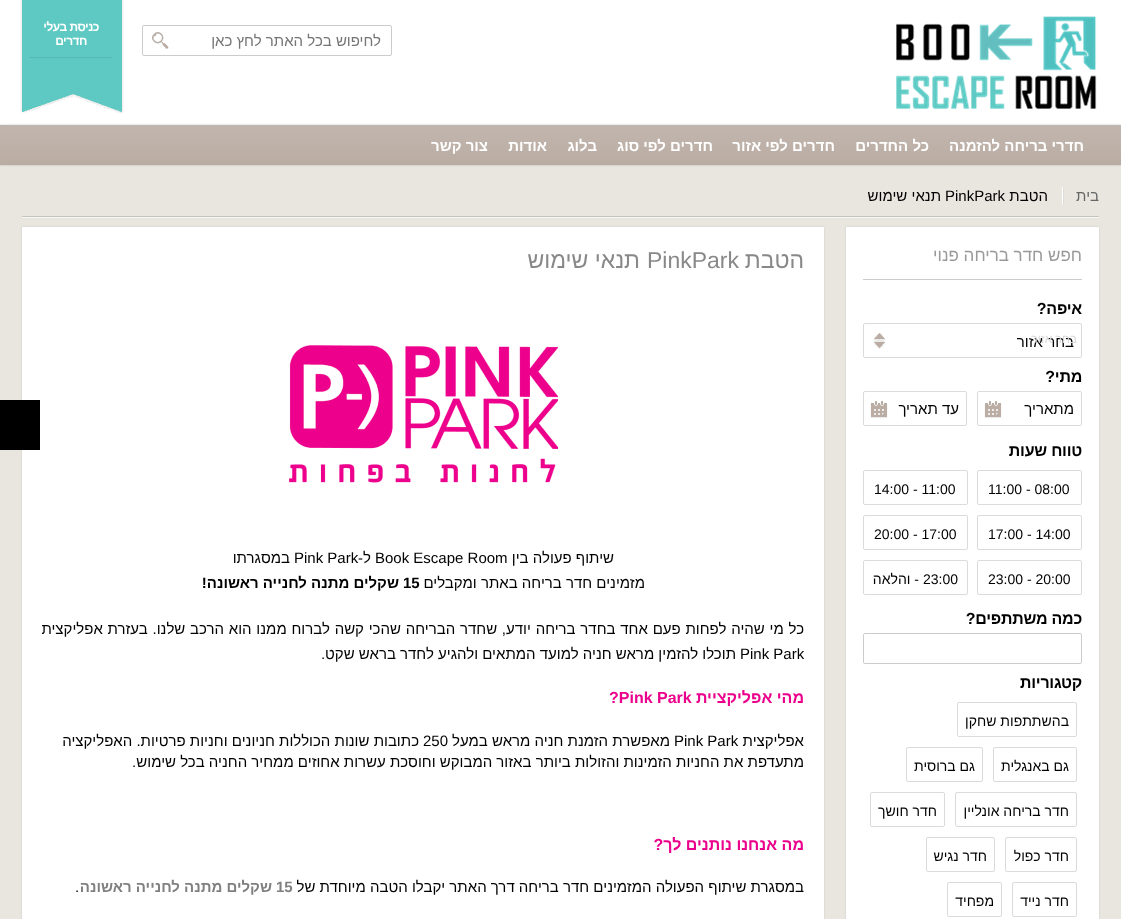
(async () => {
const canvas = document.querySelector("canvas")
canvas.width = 1121
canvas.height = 919
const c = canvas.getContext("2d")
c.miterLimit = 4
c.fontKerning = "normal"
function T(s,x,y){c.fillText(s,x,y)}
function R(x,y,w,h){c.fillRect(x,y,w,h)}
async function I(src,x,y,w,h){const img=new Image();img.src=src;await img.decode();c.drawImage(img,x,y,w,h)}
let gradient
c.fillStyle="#e9e6e0"
R(0,0,1121,919)
c.fillStyle="#fff"
R(0,0,1121,125)
await I("1.png",896,16,201,93)
c.beginPath()
c.roundRect(142.5,25.5,249,30,1.5)
c.strokeStyle="#ccc"
c.stroke()
c.direction="rtl"
c.font="15px Liberation Sans"
c.fillStyle="#757575"
T("לחיפוש בכל האתר לחץ כאן",381,46)
await I("2.png",152,32,17,18)
await I("3.png",20,0,104,114)
c.fillStyle="#58b9b4"
R(29,57,83,1)
c.letterSpacing="-0.5px"
c.font="bold 12px Liberation Sans"
c.fillStyle="#fff"
T("כניסת בעלי",99,31)
T("חדרים",87,45)
c.fillStyle="#00000033"
c.filter="blur(1px)"
c.beginPath()
c.rect(0,125,1121,40)
c.fill()
c.filter="none"
gradient = c.createLinearGradient(561,125,561,165)
gradient.addColorStop(0,"#c1b6ae")
gradient.addColorStop(1,"#baaca3")
c.fillStyle = gradient
R(0,125,1121,40)
c.letterSpacing="0px"
c.font="bold 15px Liberation Sans"
c.fillStyle="#fff"
T("חדרי בריחה להזמנה",1084,151)
T("כל החדרים",929,151)
T("חדרים לפי אזור",835,151)
T("חדרים לפי סוג",713,151)
T("בלוג",597,151)
T("אודות",547,151)
T("צור קשר",488,151)
c.fillStyle="#f8f8f6"
R(22,217,1077,1)
c.fillStyle="#c6c4be"
R(22,216,1077,1)
c.font="15px Liberation Sans"
c.fillStyle="#666"
T("בית",1099,201)
await I("4.png",1062,187,2,17)
c.fillStyle="#000"
T("הטבת",1048,201)
c.direction="ltr"
T("PinkPark",945,201)
c.direction="rtl"
T("תנאי שימוש",941,201)
c.fillStyle="#0000001a"
c.filter="blur(1px)"
c.beginPath()
c.rect(846,227,253,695)
c.fill()
c.filter="none"
c.fillStyle="#fff"
R(846,227,253,692)
c.fillStyle="#ccc"
R(863,279,219,1)
c.font="17px Liberation Sans"
c.fillStyle="#999"
T("חפש חדר בריחה פנוי",1082,261)
c.letterSpacing="-0.25px"
c.font="bold 16px Liberation Sans"
c.fillStyle="#000"
T("איפה?",1082,314)
await I("5.png",873,333,13,16)
c.beginPath()
c.roundRect(863.5,323.5,218,34,1.5)
c.strokeStyle="#dbdbdb"
c.stroke()
c.letterSpacing="0px"
c.font="15px Liberation Sans"
T("בחר אזור",1074,347)
c.font="12px Liberation Sans"
c.fillStyle="#d9d9d9"
T("בחר אזור",1077,343)
c.letterSpacing="-0.25px"
c.font="bold 16px Liberation Sans"
c.fillStyle="#000"
T("מתי?",1082,382)
await I("6.png",984,401,18,18)
c.beginPath()
c.roundRect(977.5,391.5,104,34,1.5)
c.stroke()
c.letterSpacing="0px"
c.font="15px Liberation Sans"
T("מתאריך",1074,414)
await I("6.png",870,401,18,18)
c.beginPath()
c.roundRect(863.5,391.5,103,34,1.5)
c.stroke()
T("עד תאריך",959,414)
c.letterSpacing="-0.25px"
c.font="bold 16px Liberation Sans"
T("טווח שעות",1082,456)
c.beginPath()
c.roundRect(977.5,470.5,104,34,1.5)
c.stroke()
c.letterSpacing="0px"
c.direction="ltr"
c.font="14px Liberation Sans"
T("11:00 - 08:00",988,494)
c.beginPath()
c.roundRect(863.5,470.5,104,34,1.5)
c.stroke()
T("14:00 - 11:00",874,494)
c.beginPath()
c.roundRect(977.5,515.5,104,34,1.5)
c.stroke()
T("17:00 - 14:00",988,539)
c.beginPath()
c.roundRect(863.5,515.5,104,34,1.5)
c.stroke()
T("20:00 - 17:00",874,539)
c.beginPath()
c.roundRect(977.5,560.5,104,34,1.5)
c.stroke()
T("23:00 - 20:00",988,584)
c.beginPath()
c.roundRect(863.5,560.5,104,34,1.5)
c.stroke()
T("23:00",923,584)
c.direction="rtl"
T("- והלאה",919,584)
c.letterSpacing="-0.25px"
c.font="bold 16px Liberation Sans"
T("כמה משתתפים?",1082,624)
c.beginPath()
c.roundRect(863.5,633.5,218,30,1.5)
c.strokeStyle="#ccc"
c.stroke()
T("קטגוריות",1082,688)
c.beginPath()
c.roundRect(957.5,702.5,119,34,1.5)
c.strokeStyle="#dbdbdb"
c.stroke()
c.letterSpacing="0px"
c.font="14px Liberation Sans"
T("בהשתתפות שחקן",1069,726)
c.beginPath()
c.roundRect(993.5,747.5,83,34,1.5)
c.stroke()
T("גם באנגלית",1069,771)
c.beginPath()
c.roundRect(906.5,747.5,76,34,1.5)
c.stroke()
T("גם ברוסית",975,771)
c.beginPath()
c.roundRect(955.5,792.5,121,34,1.5)
c.stroke()
T("חדר בריחה אונליין",1069,816)
c.beginPath()
c.roundRect(870.5,792.5,74,34,1.5)
c.stroke()
T("חדר חושך",937,816)
c.beginPath()
c.roundRect(1005.5,837.5,71,34,1.5)
c.stroke()
T("חדר כפול",1069,861)
c.beginPath()
c.roundRect(926.5,837.5,68,34,1.5)
c.stroke()
T("חדר נגיש",987,861)
c.beginPath()
c.roundRect(1012.5,882.5,64,34,1.5)
c.stroke()
T("חדר נייד",1069,906)
c.beginPath()
c.roundRect(947.5,882.5,54,34,1.5)
c.stroke()
T("מפחיד",994,906)
c.fillStyle="#0000001a"
c.filter="blur(1px)"
c.beginPath()
c.rect(22,227,802,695)
c.fill()
c.filter="none"
c.fillStyle="#fff"
R(22,227,802,692)
c.font="23px Liberation Sans"
c.fillStyle="#888"
T("הטבת",804,268)
c.direction="ltr"
T("PinkPark",647,268)
c.direction="rtl"
T("תנאי שימוש",640,268)
await I("7.png",289,345,269,138)
c.font="15px Liberation Sans"
c.fillStyle="#000"
T("שיתוף פעולה בין",614,563)
c.direction="ltr"
T("Book Escape Room",375,563)
T("Pink Park",294,563)
c.direction="rtl"
T("ל-",371,563)
T("במסגרתו",290,563)
T("מזמינים חדר בריחה באתר ומקבלים",645,588)
c.direction="ltr"
c.font="bold 15px Liberation Sans"
T("15",403,588)
c.direction="rtl"
T("שקלים מתנה לחנייה ראשונה!",399,588)
c.wordSpacing="0.6px"
c.font="15px Liberation Sans"
T("כל מי שהיה לפחות פעם אחד בחדר בריחה יודע, שחדר הבריחה שהכי קשה לברוח ממנו הוא הרכב שלנו. בעזרת אפליקצית",804,634)
c.wordSpacing="0px"
c.direction="ltr"
T("Pink Park",740,659)
c.direction="rtl"
T("תוכלו להזמין מראש חניה למועד המתאים ולהגיע לחדר בראש שקט.",736,659)
c.font="bold 16px Liberation Sans"
c.fillStyle="#eb008c"
T("מהי אפליקציית",804,703)
c.direction="ltr"
T("?Pink Park",609,703)
c.direction="rtl"
c.font="15px Liberation Sans"
c.fillStyle="#000"
T("אפליקצית",804,746)
c.direction="ltr"
T("Pink Park",674,746)
c.direction="rtl"
T("מאפשרת הזמנת חניה מראש במעל",670,746)
c.direction="ltr"
T("250",423,746)
c.direction="rtl"
T("כתובות שונות הכוללות חניונים וחניות פרטיות. האפליקציה",419,746)
T("מתעדפת את החניות הזמינות והזולות ביותר באזור המבוקש וחוסכת עשרות אחוזים ממחיר החניה בכל שימוש.",804,767)
c.font="bold 16px Liberation Sans"
c.fillStyle="#eb008c"
T("מה אנחנו נותנים לך?",804,850)
c.font="15px Liberation Sans"
c.fillStyle="#000"
T("במסגרת שיתוף הפעולה המזמינים חדר בריחה דרך האתר יקבלו הטבה מיוחדת של",804,892)
c.direction="ltr"
c.font="bold 15px Liberation Sans"
c.fillStyle="#808080"
T("15",276,892)
c.direction="rtl"
T("שקלים מתנה לחנייה ראשונה",272,892)
c.direction="ltr"
c.font="15px Liberation Sans"
c.fillStyle="#000"
T(".",75,892)
R(0,400,40,50)
})()
